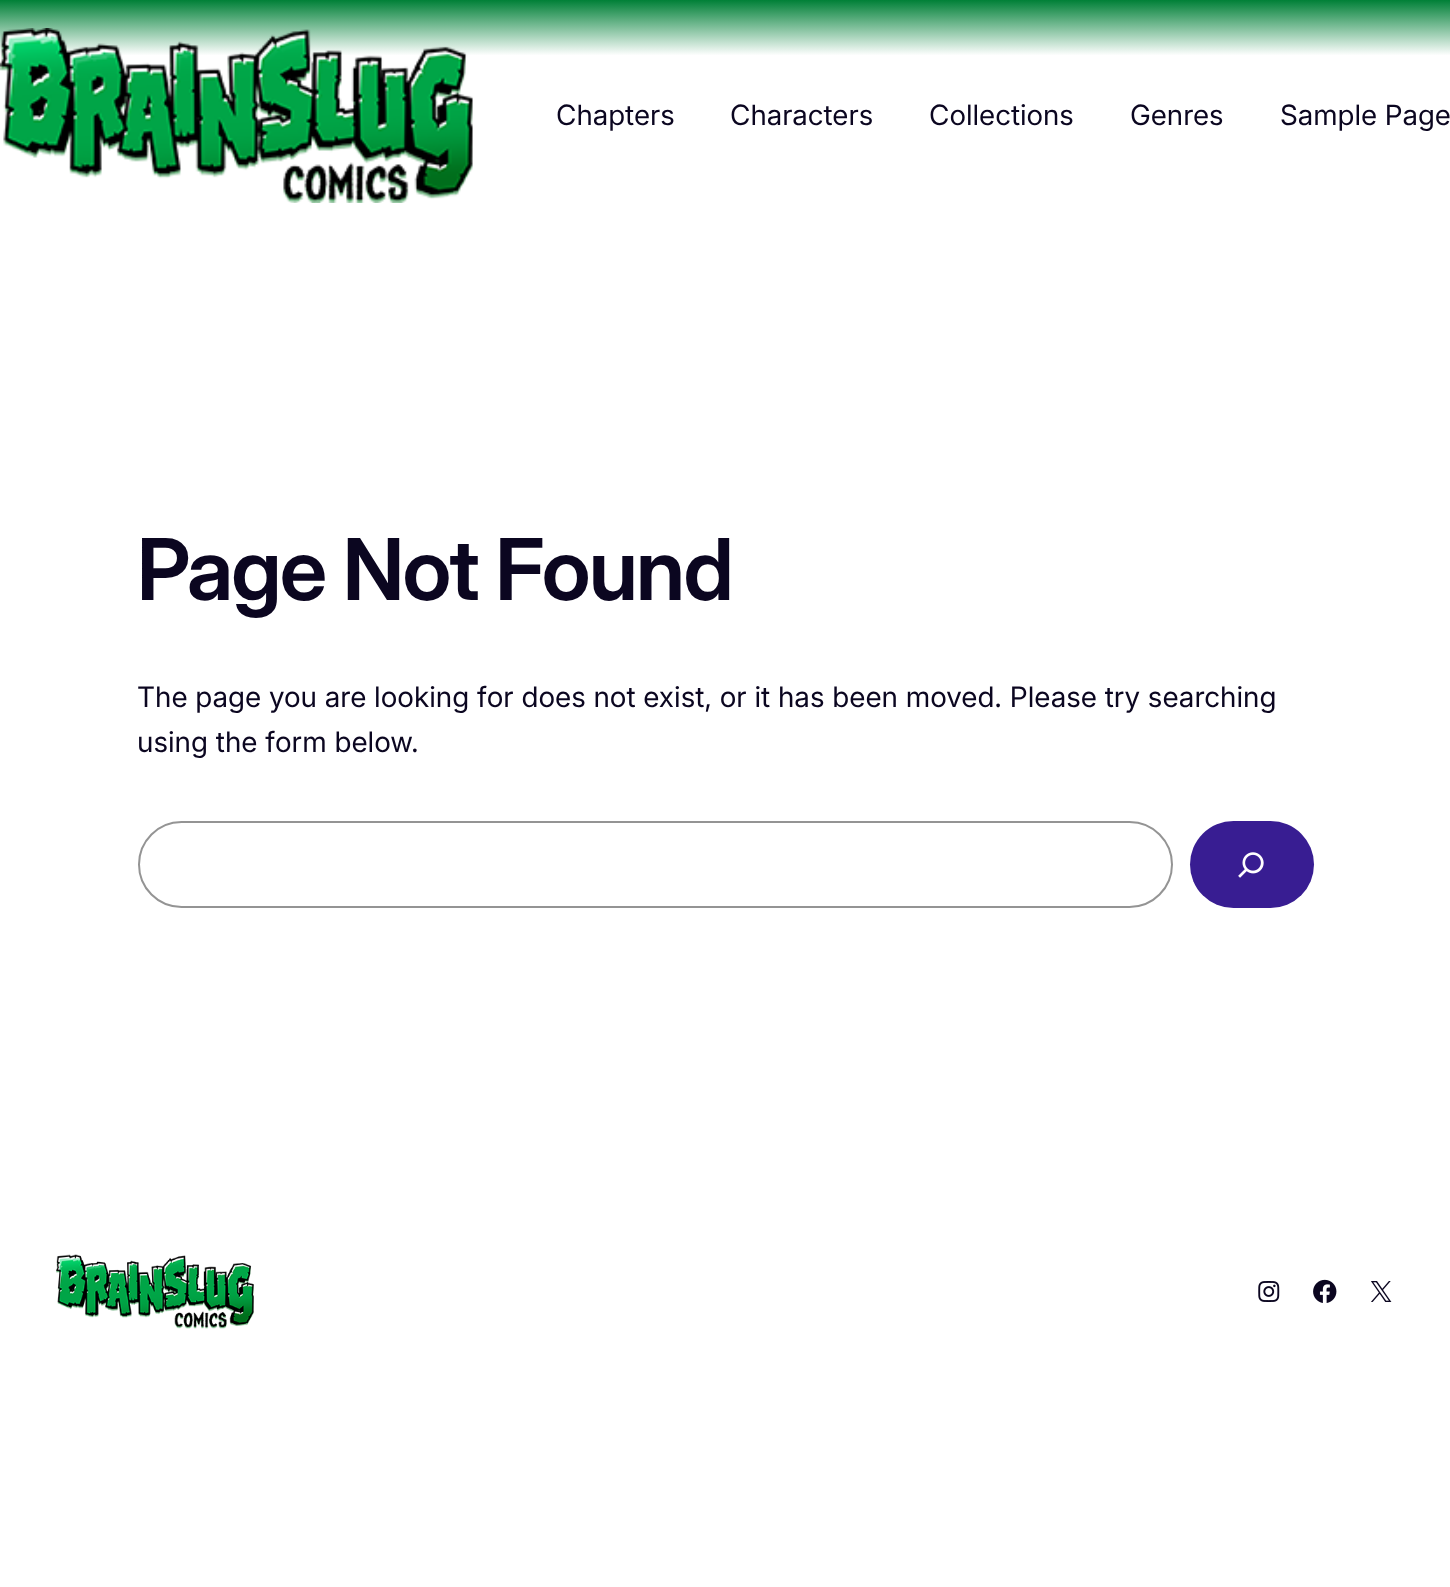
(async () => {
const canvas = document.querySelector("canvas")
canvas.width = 1450
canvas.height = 1587
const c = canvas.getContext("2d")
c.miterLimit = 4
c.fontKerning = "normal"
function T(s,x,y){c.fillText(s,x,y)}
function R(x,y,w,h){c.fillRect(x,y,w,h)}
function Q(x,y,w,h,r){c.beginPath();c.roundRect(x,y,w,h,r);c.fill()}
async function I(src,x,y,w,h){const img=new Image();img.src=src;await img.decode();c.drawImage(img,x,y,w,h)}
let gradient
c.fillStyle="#fff"
R(0,0,1450,1587)
gradient = c.createLinearGradient(725,0,725,231)
gradient.addColorStop(0,"#008037")
gradient.addColorStop(.24,"#fff")
c.fillStyle = gradient
R(0,0,1450,55)
await I("1.png",0,28,473,175)
c.font="28px 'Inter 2'"
c.fillStyle="#0b0620"
T("Chapters",556,125)
T("Characters",730,125)
T("Collections",929,125)
T("Genres",1130,125)
T("Sample Page",1280,125)
c.letterSpacing="-1.75px"
c.font="600 85.25px Inter"
T("Page Not Found",137,600)
c.letterSpacing="0px"
c.font="28.2px Inter"
T("The page you are looking for does not exist, or it has been moved. Please try searching",137,707)
T("using the form below.",137,752)
c.beginPath()
c.roundRect(139,822,1033,85,42.5)
c.strokeStyle="#949494"
c.lineWidth=2
c.stroke()
c.fillStyle="#381d92"
Q(1190,821,124,87,43.5)
await I("2.png",1238,852,26,26)
await I("3.png",56,1254,198,75)
await I("4.png",1258,1281,22,21)
await I("5.png",1313,1279,24,24)
await I("6.png",1371,1281,21,21)
})()
